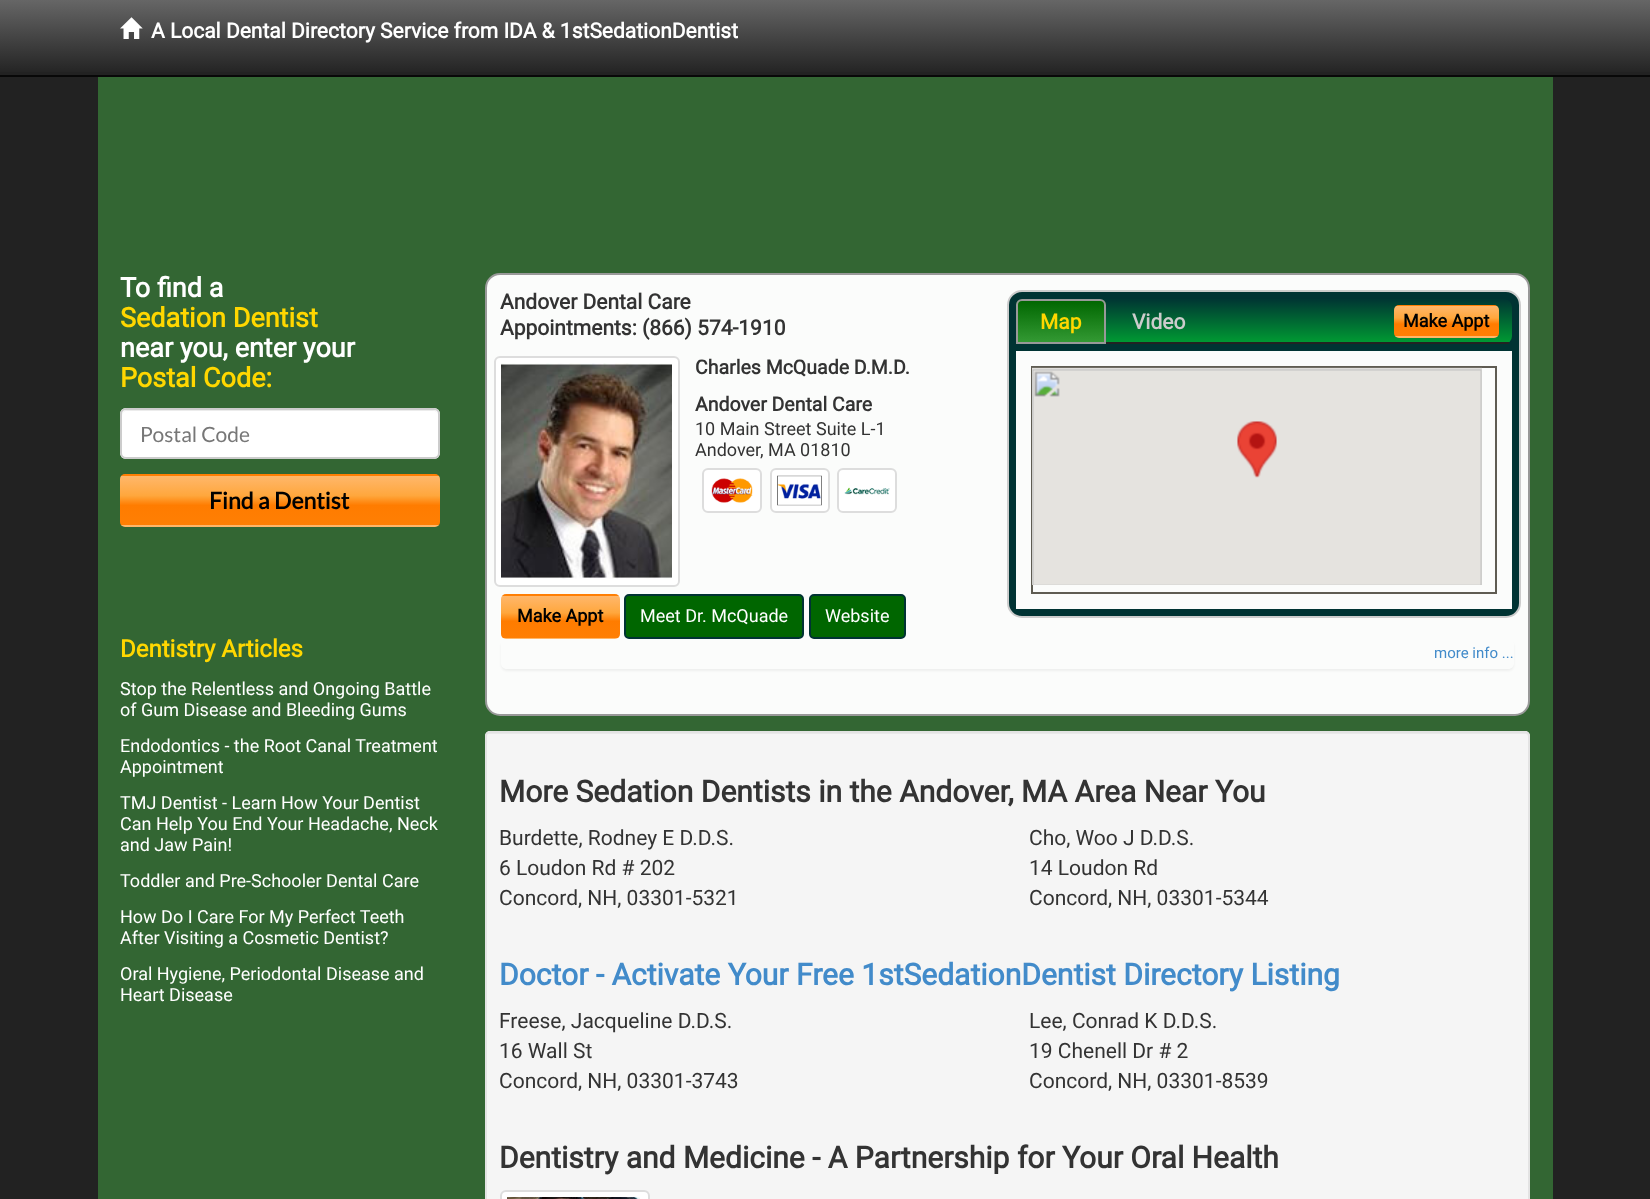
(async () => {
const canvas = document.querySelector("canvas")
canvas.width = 1650
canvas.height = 1199
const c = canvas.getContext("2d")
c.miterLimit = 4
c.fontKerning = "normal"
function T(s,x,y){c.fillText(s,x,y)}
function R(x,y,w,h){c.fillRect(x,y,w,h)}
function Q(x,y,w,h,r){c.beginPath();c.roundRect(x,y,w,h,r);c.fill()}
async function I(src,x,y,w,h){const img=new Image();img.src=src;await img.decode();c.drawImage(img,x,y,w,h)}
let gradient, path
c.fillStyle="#222"
R(0,0,1650,1199)
gradient = c.createLinearGradient(825,0,825,75)
gradient.addColorStop(0,"#666")
gradient.addColorStop(1,"#222")
c.fillStyle = gradient
R(0,0,1650,72)
c.fillStyle="#080808"
R(0,75,1650,2)
await I("1.png",120,17,23,22)
c.font="bold 21px Roboto"
c.fillStyle="#fff"
T("A Local Dental Directory Service from IDA & 1stSedationDentist",151,38)
c.fillStyle="#363"
R(98,77,1455,1122)
c.font="bold 27px Roboto"
c.fillStyle="#fff"
T("To find a",120,297)
c.fillStyle="#ffd700"
T("Sedation Dentist",120,327)
c.fillStyle="#fff"
T("near you, enter your",120,357)
c.fillStyle="#ffd700"
T("Postal Code:",120,387)
c.fillStyle="#fff"
Q(120,408,320,51,6)
c.fillStyle="#ececec"
path = new Path2D("M126 411h308c2 0 4 2 4 5c0-3-2-6-5-6h-306c-3 0-5 3-5 6c0-3 2-5 4-5z")
c.fill(path)
c.beginPath()
c.roundRect(121,409,318,49,5)
c.strokeStyle="#ccc"
c.lineWidth=2
c.stroke()
c.font="21px Lato"
c.fillStyle="#777"
T("Postal Code",140,442)
c.save()
c.beginPath()
c.roundRect(120,474,320,53,5)
c.clip()
gradient = c.createLinearGradient(280,426,280,476)
gradient.addColorStop(0,"#ffb76b")
gradient.addColorStop(.4,"#ffa73d")
gradient.addColorStop(.6,"#ff7c00")
gradient.addColorStop(1,"#ff7f04")
c.fillStyle = gradient
R(120,474,320,2)
gradient = c.createLinearGradient(280,476,280,525)
gradient.addColorStop(0,"#ffb76b")
gradient.addColorStop(.4,"#ffa73d")
gradient.addColorStop(.6,"#ff7c00")
gradient.addColorStop(1,"#ff7f04")
c.fillStyle = gradient
R(120,476,320,49)
gradient = c.createLinearGradient(280,525,280,575)
gradient.addColorStop(0,"#ffb76b")
gradient.addColorStop(.4,"#ffa73d")
gradient.addColorStop(.6,"#ff7c00")
gradient.addColorStop(1,"#ff7f04")
c.fillStyle = gradient
R(120,525,320,2)
c.restore()
c.font="bold 23px Lato"
c.fillStyle="#000"
T("Find a Dentist",209,509)
c.font="bold 24px Roboto"
c.fillStyle="#ffd700"
T("Dentistry Articles",120,657)
c.font="18px Roboto"
c.fillStyle="#fff"
T("Stop the Relentless and Ongoing Battle",120,695)
T("of Gum Disease and Bleeding Gums",120,716)
T("Endodontics - the Root Canal Treatment",120,752)
T("Appointment",120,773)
T("TMJ Dentist - Learn How Your Dentist",120,809)
T("Can Help You End Your Headache, Neck",120,830)
T("and Jaw Pain!",120,851)
T("Toddler and Pre-Schooler Dental Care",120,887)
T("How Do I Care For My Perfect Teeth",120,923)
T("After Visiting a Cosmetic Dentist?",120,944)
T("Oral Hygiene, Periodontal Disease and",120,980)
T("Heart Disease",120,1001)
c.fillStyle="#fbfcfb"
c.beginPath()
c.roundRect(486,274,1043,441,14)
c.fill()
c.strokeStyle="#999"
c.stroke()
c.font="bold 21px Roboto"
c.fillStyle="#333"
T("Andover Dental Care",500,309)
T("Appointments: (866) 574-1910",500,335)
c.fillStyle="#fff"
c.beginPath()
c.roundRect(495,357,184,229,5)
c.fill()
c.strokeStyle="#ddd"
c.stroke()
await I("2.png",501,363,171,216)
c.font="bold 19.5px Roboto"
c.fillStyle="#333"
T("Charles McQuade D.M.D.",695,374)
T("Andover Dental Care",695,411)
c.font="18px Roboto"
T("10 Main Street Suite L-1",695,435)
T("Andover",695,456)
T(", MA 01810",760,456)
c.fillStyle="#fff"
c.beginPath()
c.roundRect(703,469,58,43,5)
c.fill()
c.stroke()
await I("3.png",711,478,42,25)
c.beginPath()
c.roundRect(771,469,58,43,5)
c.fill()
c.stroke()
await I("4.png",777,475,45,31)
c.beginPath()
c.roundRect(838,469,58,43,5)
c.fill()
c.stroke()
await I("5.png",844,487,46,8)
c.save()
c.beginPath()
c.roundRect(501,594,119,45,5)
c.clip()
gradient = c.createLinearGradient(560,554,560,596)
gradient.addColorStop(0,"#ffb76b")
gradient.addColorStop(.4,"#ffa73d")
gradient.addColorStop(.6,"#ff7c00")
gradient.addColorStop(1,"#ff7f04")
c.fillStyle = gradient
R(501,594,119,2)
gradient = c.createLinearGradient(560,596,560,638)
gradient.addColorStop(0,"#ffb76b")
gradient.addColorStop(.4,"#ffa73d")
gradient.addColorStop(.6,"#ff7c00")
gradient.addColorStop(1,"#ff7f04")
c.fillStyle = gradient
R(501,596,119,42)
gradient = c.createLinearGradient(560,638,560,680)
gradient.addColorStop(0,"#ffb76b")
gradient.addColorStop(.4,"#ffa73d")
gradient.addColorStop(.6,"#ff7c00")
gradient.addColorStop(1,"#ff7f04")
c.fillStyle = gradient
R(501,638,119,1)
c.restore()
c.font="bold 18px Roboto"
c.fillStyle="#000"
T("Make Appt",517,622)
c.fillStyle="#060"
c.beginPath()
c.roundRect(625,595,178,43,4)
c.fill()
c.strokeStyle="#033"
c.stroke()
c.font="18px Roboto"
c.fillStyle="#fff"
T("Meet Dr. McQuade",640,622)
c.fillStyle="#060"
c.beginPath()
c.roundRect(810,595,95,43,4)
c.fill()
c.stroke()
c.fillStyle="#fff"
T("Website",825,622)
c.fillStyle="#033"
c.beginPath()
c.roundRect(1008,291,512,326,14)
c.fill()
c.strokeStyle="#ccc"
c.stroke()
c.save()
c.beginPath()
c.roundRect(1016,299,496,45,8)
c.clip()
gradient = c.createLinearGradient(1264,298,1264,342)
gradient.addColorStop(0,"#033")
gradient.addColorStop(1,"#093")
c.fillStyle = gradient
c.beginPath()
c.roundRect(1016,299,496,43,[8,8,0,0])
c.fill()
c.restore()
c.fillStyle="#222"
R(1106,342,403,2)
c.save()
c.beginPath()
c.roundRect(1016,299,90,45,[6,6,0,0])
c.clip()
gradient = c.createLinearGradient(1061,300,1061,342)
gradient.addColorStop(0,"#060")
gradient.addColorStop(1,"#393")
c.fillStyle = gradient
R(1016,300,90,42)
c.restore()
c.beginPath()
c.roundRect(1017,300,88,43,[5,5,0,0])
c.strokeStyle="#999"
c.stroke()
c.font="bold 21px Roboto"
c.fillStyle="#ffd700"
T("Map",1040,329)
c.fillStyle="#ccc"
T("Video",1132,329)
c.fillStyle="#fbfcfb"
R(1016,351,496,258)
c.strokeStyle="#5f5c52"
c.strokeRect(1032,367,464,226)
await I("6.png",1032,367,450,218)
c.save()
c.beginPath()
c.roundRect(1394,305,105,33,5)
c.clip()
gradient = c.createLinearGradient(1446,276,1446,306)
gradient.addColorStop(0,"#ffb76b")
gradient.addColorStop(.4,"#ffa73d")
gradient.addColorStop(.6,"#ff7c00")
gradient.addColorStop(1,"#ff7f04")
c.fillStyle = gradient
R(1394,305,105,1)
gradient = c.createLinearGradient(1446,306,1446,336)
gradient.addColorStop(0,"#ffb76b")
gradient.addColorStop(.4,"#ffa73d")
gradient.addColorStop(.6,"#ff7c00")
gradient.addColorStop(1,"#ff7f04")
c.fillStyle = gradient
R(1394,306,105,30)
gradient = c.createLinearGradient(1446,336,1446,366)
gradient.addColorStop(0,"#ffb76b")
gradient.addColorStop(.4,"#ffa73d")
gradient.addColorStop(.6,"#ff7c00")
gradient.addColorStop(1,"#ff7f04")
c.fillStyle = gradient
R(1394,336,105,2)
c.restore()
c.font="bold 18px Roboto"
c.fillStyle="#000"
T("Make Appt",1403,327)
c.save()
path = new Path2D("M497 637h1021v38h-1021zm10 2h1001c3.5 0 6 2.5 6 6v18c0 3.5-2.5 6-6 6h-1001c-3.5 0-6-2.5-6-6v-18c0-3.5 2.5-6 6-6z")
c.clip(path,"evenodd")
c.fillStyle="#0000000d"
c.filter="blur(1px)"
c.beginPath()
c.roundRect(501,641,1013,30,6)
c.fill()
c.filter="none"
c.restore()
c.font="15px Roboto"
c.fillStyle="#428bca"
T("more info ...",1434,658)
c.fillStyle="#f5f5f5"
Q(485,731,1045,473,5)
c.fillStyle="#e9e9e9"
path = new Path2D("M489 734h1037c1 0 2 1 2 2v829c1 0 1-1 1-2v-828c0-2-1-3-3-3h-1037c-2 0-3 1-3 3v1c0-1 1-2 3-2z")
c.fill(path)
c.beginPath()
c.roundRect(486,732,1043,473,4)
c.strokeStyle="#e3e3e3"
c.stroke()
c.font="bold 30px Roboto"
c.fillStyle="#333"
T("More Sedation Dentists in the Andover, MA Area Near You",499,802)
c.font="21px Roboto"
T("Burdette, Rodney E D.D.S.",499,845)
T("6 Loudon Rd # 202",499,875)
T("Concord, NH, 03301-5321",499,905)
T("Cho, Woo J D.D.S.",1029,845)
T("14 Loudon Rd",1029,875)
T("Concord, NH, 03301-5344",1029,905)
c.font="bold 30px Roboto"
c.fillStyle="#428bca"
T("Doctor - Activate Your Free 1stSedationDentist Directory Listing",499,985)
c.font="21px Roboto"
c.fillStyle="#333"
T("Freese, Jacqueline D.D.S.",499,1028)
T("16 Wall St",499,1058)
T("Concord, NH, 03301-3743",499,1088)
T("Lee, Conrad K D.D.S.",1029,1028)
T("19 Chenell Dr # 2",1029,1058)
T("Concord, NH, 03301-8539",1029,1088)
c.font="bold 30px Roboto"
T("Dentistry and Medicine - A Partnership for Your Oral Health",499,1168)
c.fillStyle="#fff"
c.beginPath()
c.roundRect(501,1191,148,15,5)
c.fill()
c.strokeStyle="#ddd"
c.stroke()
await I("7.png",507,1197,133,2)
})()
